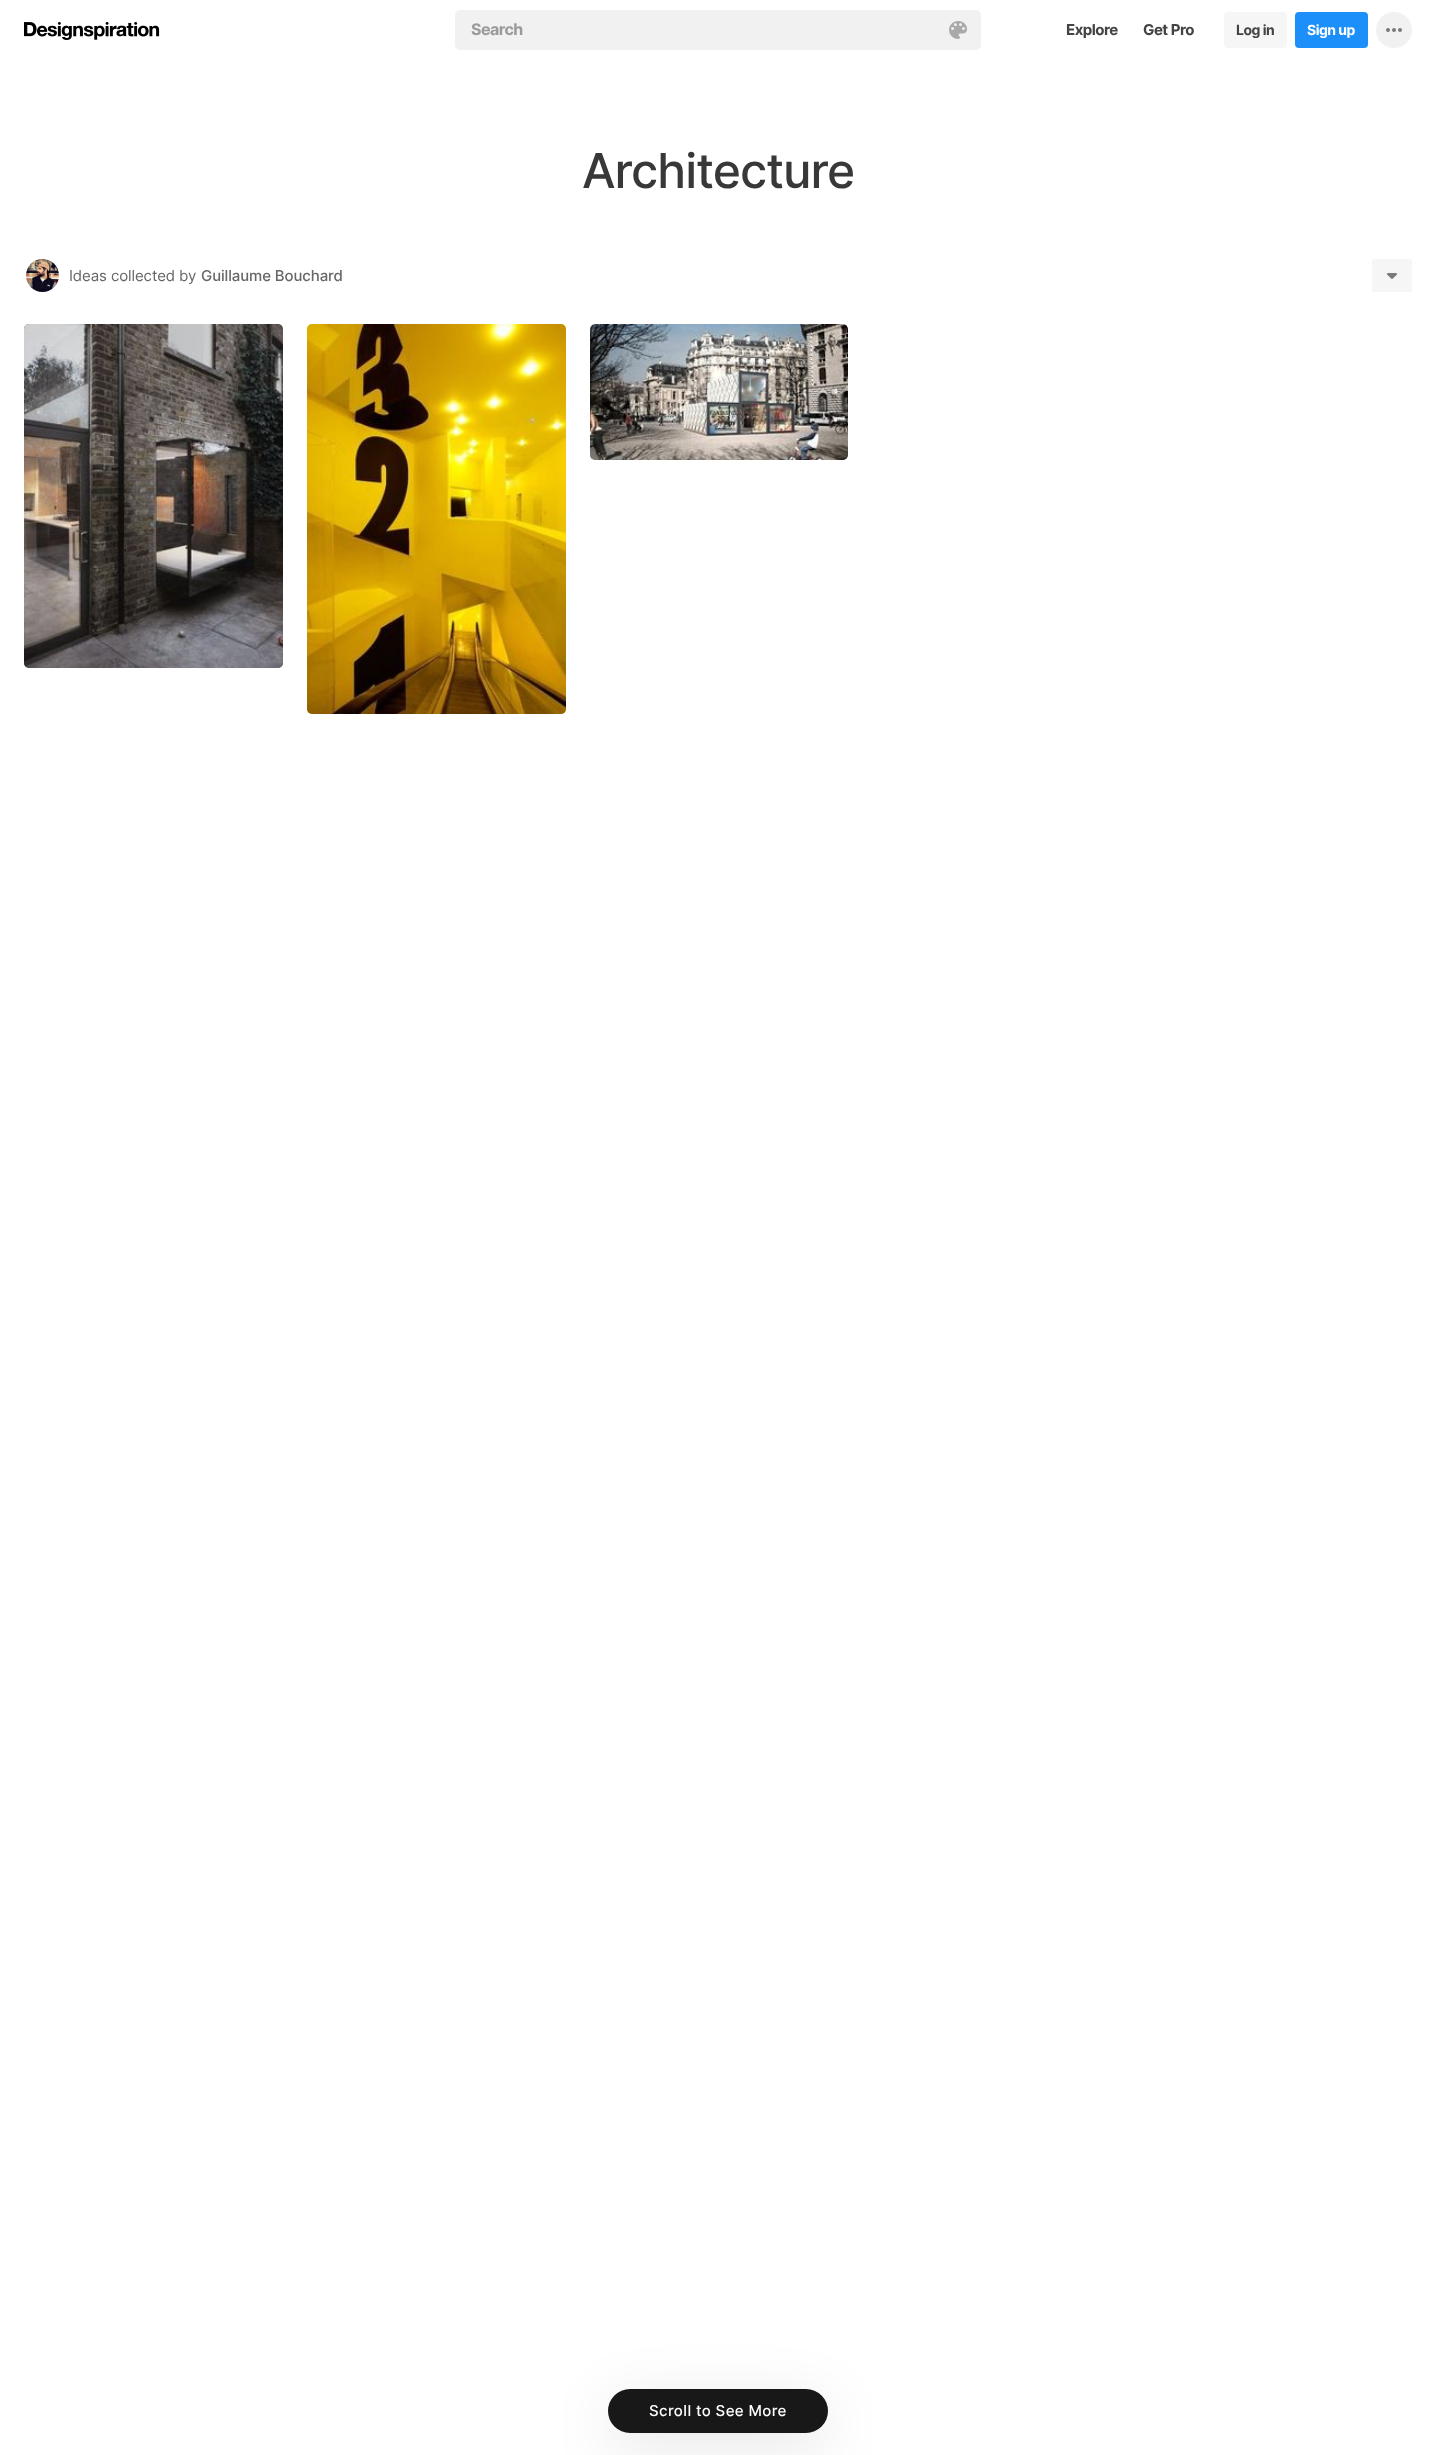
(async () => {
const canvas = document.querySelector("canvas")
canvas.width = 1436
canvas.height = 2455
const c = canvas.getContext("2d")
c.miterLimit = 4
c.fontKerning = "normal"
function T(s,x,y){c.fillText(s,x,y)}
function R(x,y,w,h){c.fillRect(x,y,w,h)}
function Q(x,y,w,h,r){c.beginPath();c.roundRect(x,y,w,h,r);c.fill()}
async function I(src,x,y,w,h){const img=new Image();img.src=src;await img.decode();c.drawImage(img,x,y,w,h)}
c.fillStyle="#fff"
R(0,0,1436,2455)
await I("1.png",24,22,136,18)
c.fillStyle="#f1f1f1"
Q(455,10,526,40,5)
c.letterSpacing="-0.5px"
c.font="bold 16px Inter"
c.fillStyle="#9a9a9a"
T("Search",471,35)
await I("2.png",949,21,18,18)
c.font="bold 15px Inter"
c.fillStyle="#444"
T("Explore",1066,35)
T("Get Pro",1143,35)
c.fillStyle="#f6f6f6"
Q(1224,12,63,36,4)
c.font="bold 14px Inter"
c.fillStyle="#444"
T("Log in",1236,35)
c.fillStyle="#1d8ffb"
Q(1295,12,73,36,4)
c.fillStyle="#fff"
T("Sign up",1307,35)
c.fillStyle="#f1f1f1"
c.beginPath()
c.arc(1394,30,18,0,7)
c.fill()
await I("3.png",1386,28,16,4)
c.letterSpacing="-1px"
c.font="500 48px Inter"
c.fillStyle="#383838"
T("Architecture",582,188)
c.beginPath()
c.arc(42.5,275.5,16,0,7)
c.strokeStyle="#0000001a"
c.stroke()
await I("4.png",26,259,33,33)
c.letterSpacing="-0.1px"
c.font="15px Inter"
c.fillStyle="#676767"
T("Ideas collected by",69,281)
c.font="500 15px Inter"
T("Guillaume Bouchard",201,281)
c.fillStyle="#f6f6f6"
Q(1372,259,40,33,3)
await I("5.png",1387,273,10,6)
c.fillStyle="#736e6d"
Q(24,324,259,344,5)
await I("6.png",24,324,259,344)
c.fillStyle="#e8bc08"
Q(307,324,259,390,5)
await I("7.png",307,324,259,390)
c.fillStyle="#d7d1c9"
Q(590,324,258,136,5)
await I("8.png",590,324,258,136)
c.fillStyle="#0000001a"
c.filter="blur(30px)"
c.beginPath()
c.roundRect(608,2403,220,44,22)
c.fill()
c.filter="none"
c.fillStyle="#181818"
Q(608,2389,220,44,22)
c.letterSpacing="0.4px"
c.fillStyle="#fff"
T("Scroll to See More",649,2416)
})()
